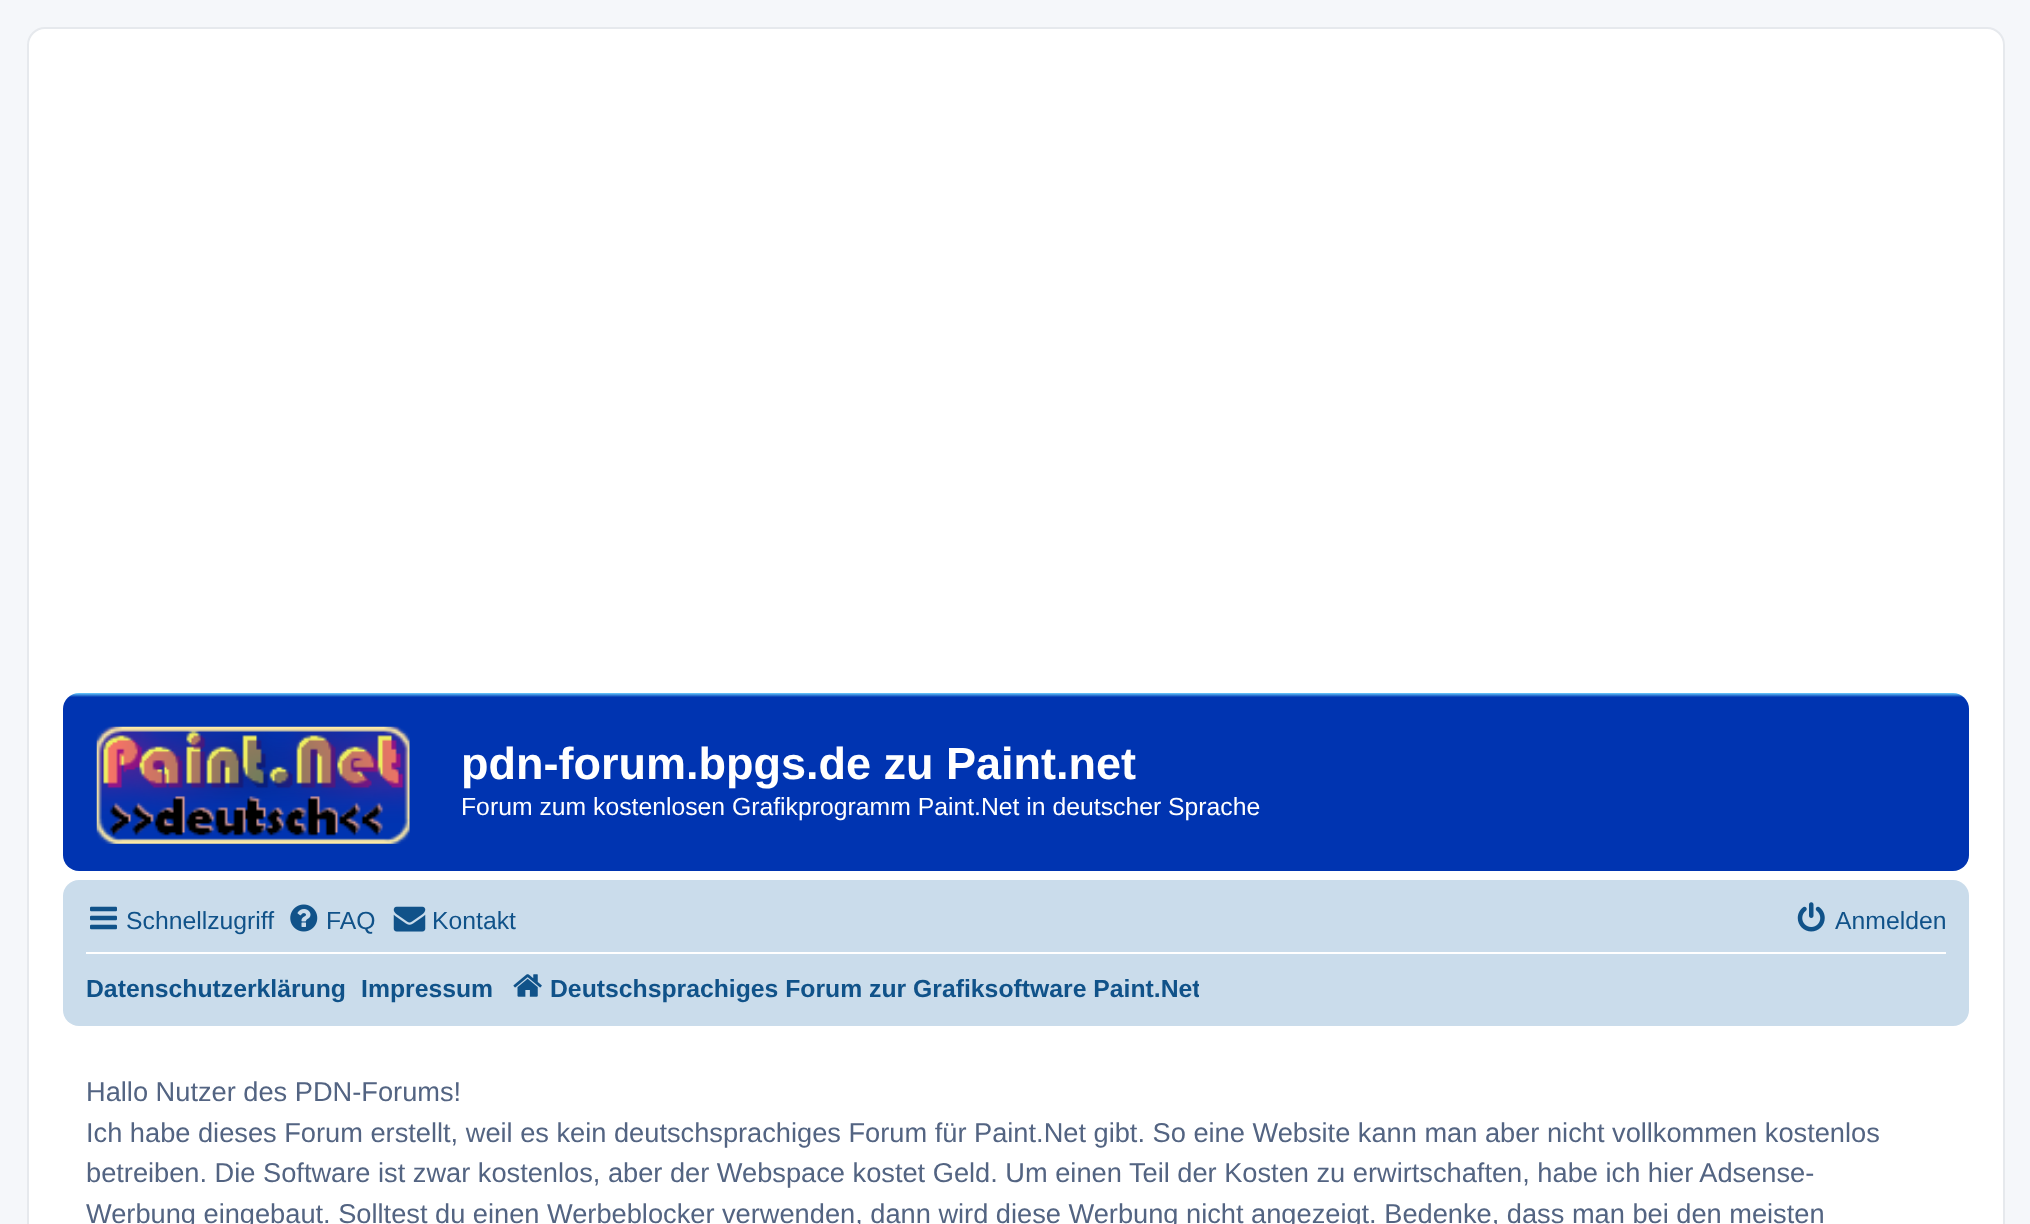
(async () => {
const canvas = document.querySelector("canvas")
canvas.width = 2030
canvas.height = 1224
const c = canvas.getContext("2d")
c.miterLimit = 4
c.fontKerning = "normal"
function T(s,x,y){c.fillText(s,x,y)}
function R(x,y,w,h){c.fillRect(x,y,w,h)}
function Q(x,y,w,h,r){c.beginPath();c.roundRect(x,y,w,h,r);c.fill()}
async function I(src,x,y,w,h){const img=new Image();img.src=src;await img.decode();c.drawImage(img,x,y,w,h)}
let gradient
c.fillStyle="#f5f7fa"
R(0,0,2030,1224)
c.fillStyle="#fff"
c.beginPath()
c.roundRect(28,28,1976,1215,17)
c.fill()
c.strokeStyle="#e6e9ed"
c.lineWidth=2
c.stroke()
gradient = c.createLinearGradient(1016,693,1016,900)
gradient.addColorStop(0,"#6aceff")
gradient.addColorStop(.02,"#0034b1")
c.fillStyle = gradient
Q(63,693,1906,178,16)
await I("1.png",96,726,314,118)
c.font="bold 45px Liberation Sans"
c.fillStyle="#fff"
T("pdn-forum.bpgs.de zu Paint.net",461,779)
c.font="24.75px Liberation Sans"
T("Forum zum kostenlosen Grafikprogramm Paint.Net in deutscher Sprache",461,815)
c.fillStyle="#cadceb"
Q(63,880,1906,146,16)
await I("2.png",90,906,27,24)
c.fillStyle="#105289"
T("Schnellzugriff",126,929)
await I("3.png",290,904,28,28)
T("FAQ",326,929)
await I("4.png",393,906,33,26)
T("Kontakt",432,929)
await I("5.png",1797,902,28,30)
T("Anmelden",1835,929)
c.fillStyle="#fff"
R(86,952,1860,2)
c.font="bold 24.75px Liberation Sans"
c.fillStyle="#105289"
T("Datenschutzerklärung",86,997)
T("Impressum",361,997)
await I("6.png",513,974,29,23)
c.save()
c.beginPath()
c.rect(509,961,690,54)
c.clip()
T("Deutschsprachiges Forum zur Grafiksoftware Paint.Net",550,997)
c.restore()
c.font="27.22px Liberation Sans"
c.fillStyle="#536482"
T("Hallo Nutzer des PDN-Forums!",86,1101)
T("Ich habe dieses Forum erstellt, weil es kein deutschsprachiges Forum für Paint.Net gibt. So eine Website kann man aber nicht vollkommen kostenlos",86,1142)
T("betreiben. Die Software ist zwar kostenlos, aber der Webspace kostet Geld. Um einen Teil der Kosten zu erwirtschaften, habe ich hier Adsense-",86,1182)
T("Werbung eingebaut. Solltest du einen Werbeblocker verwenden, dann wird diese Werbung nicht angezeigt. Bedenke, dass man bei den meisten",86,1223)
})()
